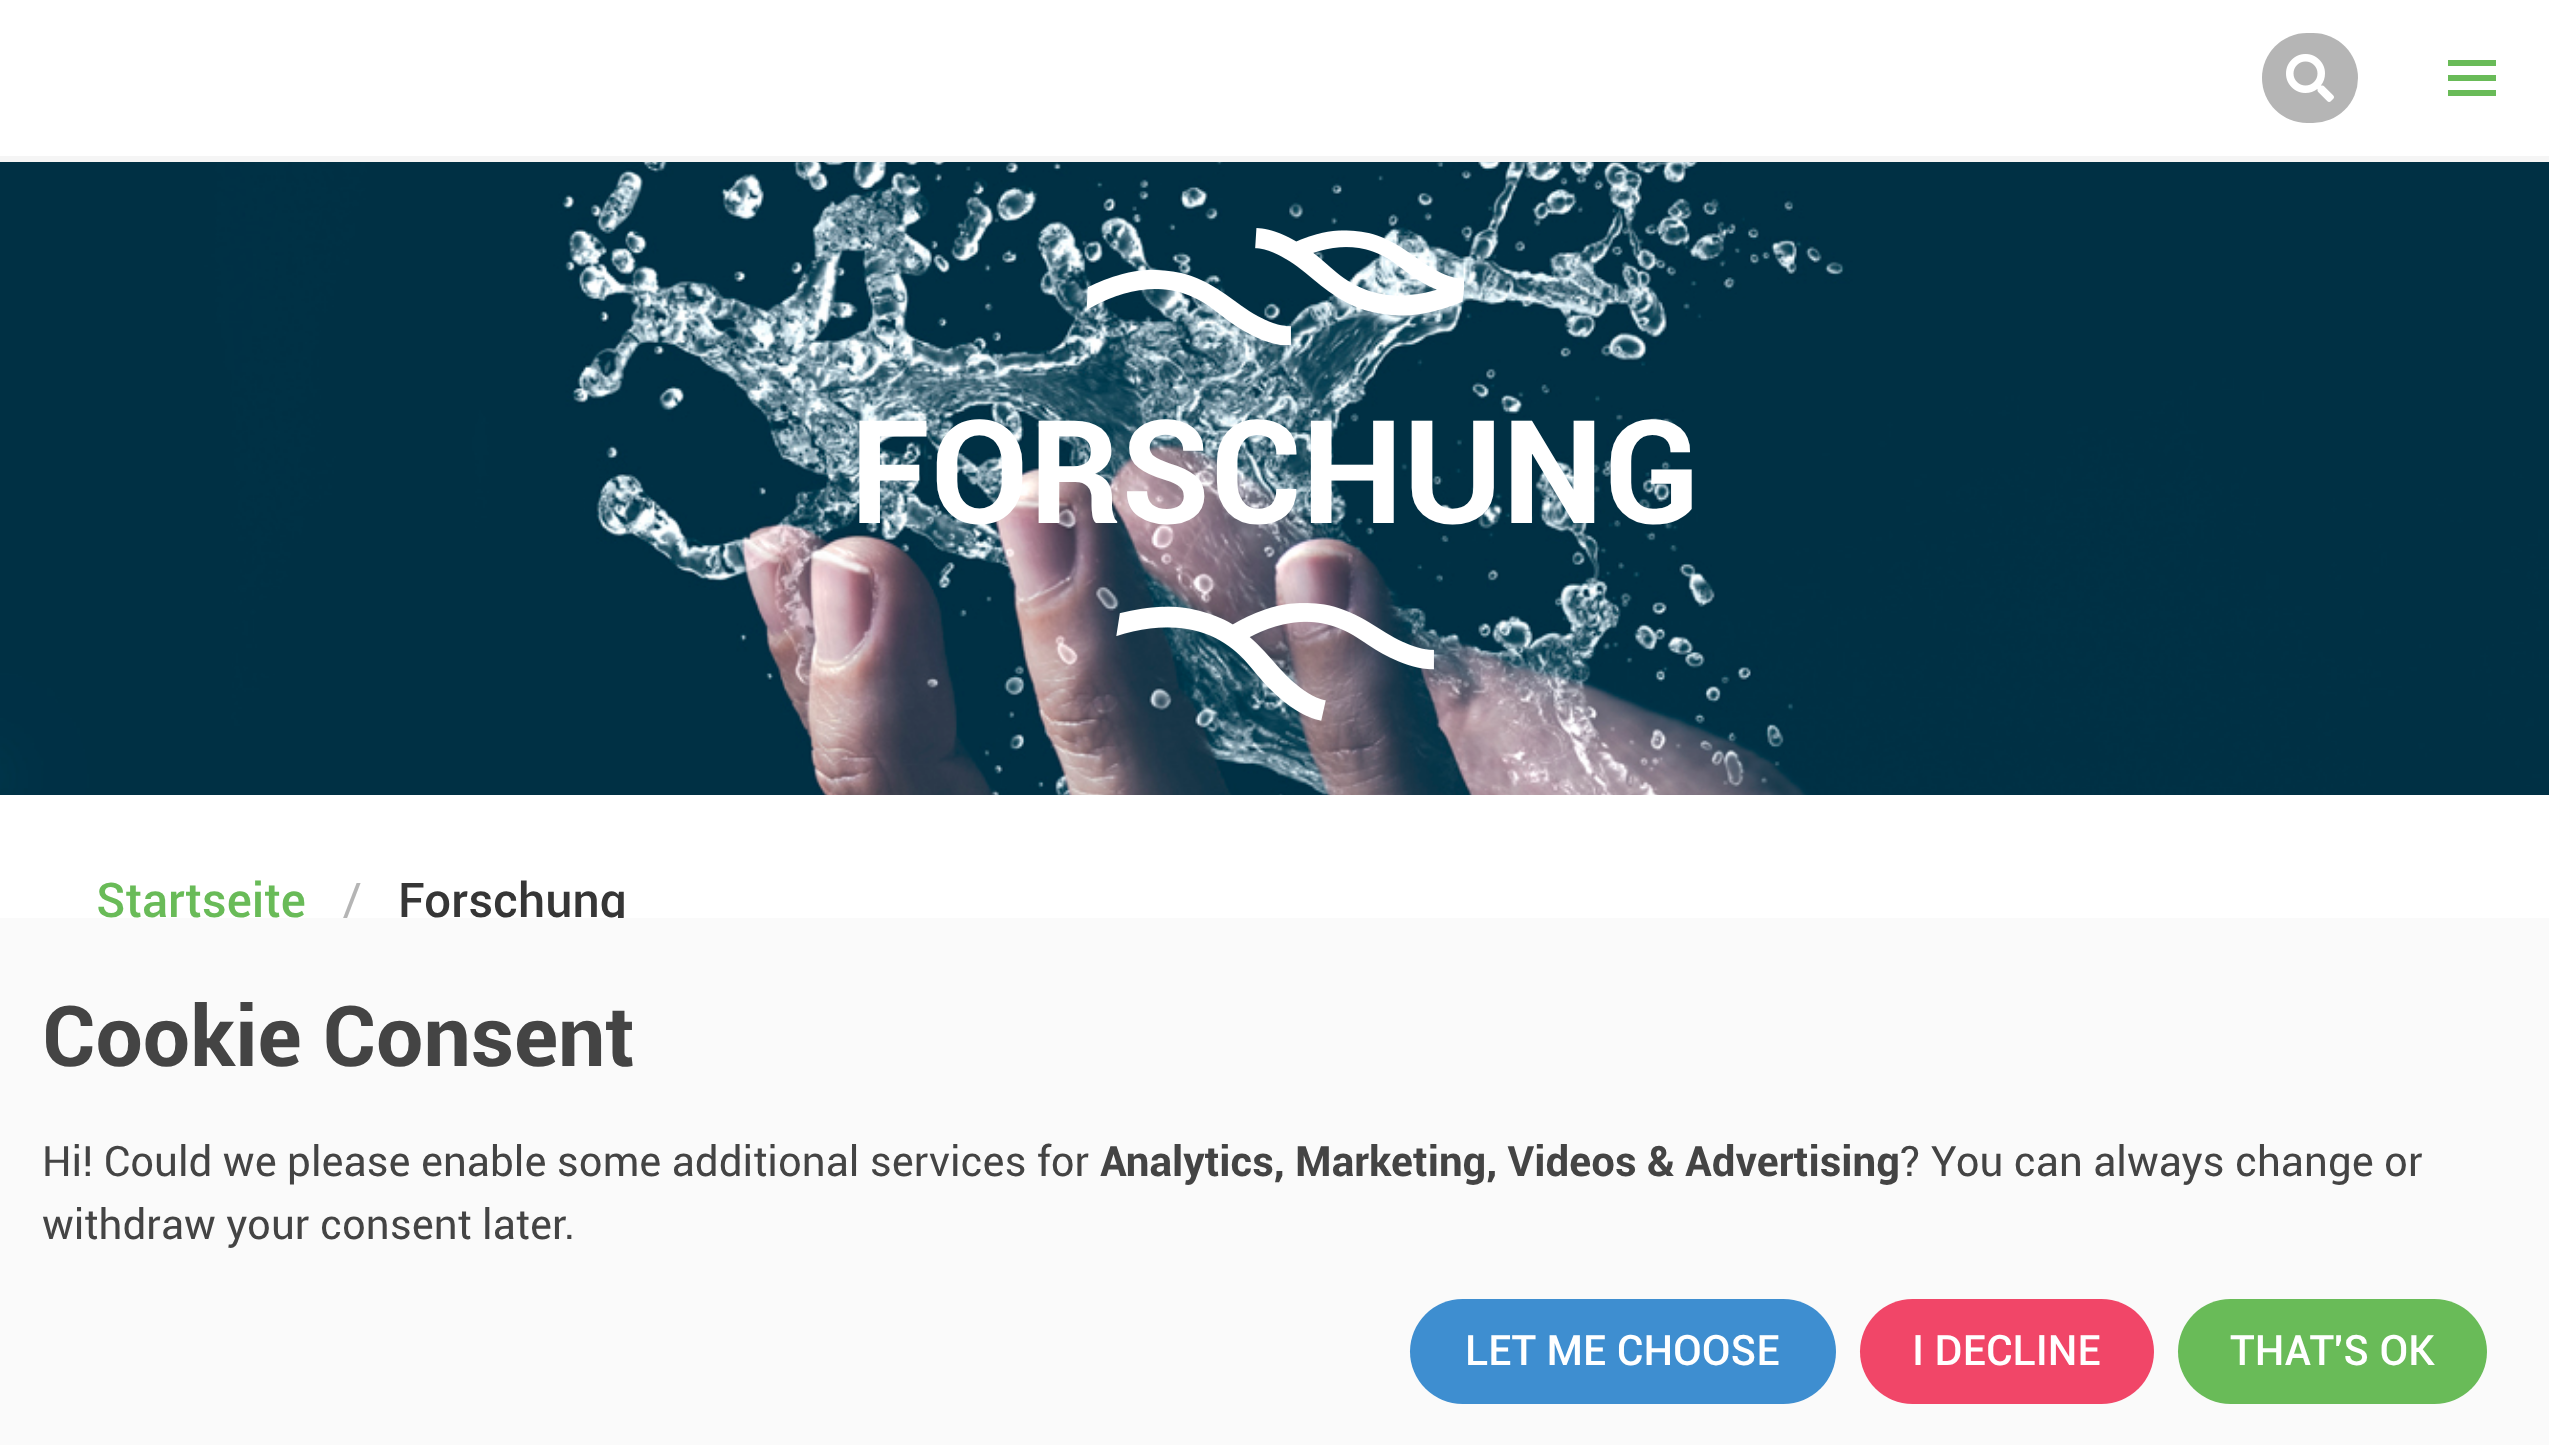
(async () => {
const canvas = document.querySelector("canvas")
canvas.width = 2549
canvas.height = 1445
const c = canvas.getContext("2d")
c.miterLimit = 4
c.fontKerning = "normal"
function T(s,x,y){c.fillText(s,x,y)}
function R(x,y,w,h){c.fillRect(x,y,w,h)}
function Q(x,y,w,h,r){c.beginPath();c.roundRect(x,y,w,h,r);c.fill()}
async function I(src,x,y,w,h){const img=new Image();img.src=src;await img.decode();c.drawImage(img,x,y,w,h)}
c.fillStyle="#fff"
R(0,0,2549,1445)
c.fillStyle="#f5f5f5"
R(0,156,2549,6)
c.fillStyle="#b5b5b5"
Q(2262,33,96,90,45)
await I("1.png",2286,54,48,48)
c.fillStyle="#69bb58"
R(2448,60,48,6)
R(2448,75,48,6)
R(2448,90,48,6)
await I("2.png",0,162,2549,633)
await I("3.png",1086,228,378,117)
c.font="bold 144px Roboto"
c.fillStyle="#fff"
T("FORSCHUNG",850,523)
await I("4.png",1116,603,318,118)
c.font="500 48px Roboto"
c.fillStyle="#69bb58"
T("Startseite",96,917)
c.font="48px Roboto"
c.fillStyle="#b5b5b5"
T("/",342,917)
c.font="500 48px Roboto"
c.fillStyle="#363636"
T("Forschung",398,917)
c.fillStyle="#fafafa"
R(0,918,2549,527)
c.font="bold 84px Roboto"
c.fillStyle="#444"
T("Cookie Consent",42,1066)
c.font="42px Roboto"
T("Hi! Could we please enable some additional services for",42,1176)
c.font="bold 42px Roboto"
T("Analytics, Marketing, Videos & Advertising",1100,1176)
c.font="42px Roboto"
T("? You can always change or",1900,1176)
T("withdraw your consent later.",42,1239)
c.fillStyle="#3e8ed0"
Q(1410,1299,426,105,52.5)
c.font="500 42px Roboto"
c.fillStyle="#fff"
T("LET ME CHOOSE",1465,1365)
c.fillStyle="#f14668"
Q(1860,1299,294,105,52.5)
c.fillStyle="#fff"
T("I DECLINE",1912,1365)
c.fillStyle="#69bb58"
Q(2178,1299,309,105,52.5)
c.fillStyle="#fff"
T("THAT'S OK",2230,1365)
})()
